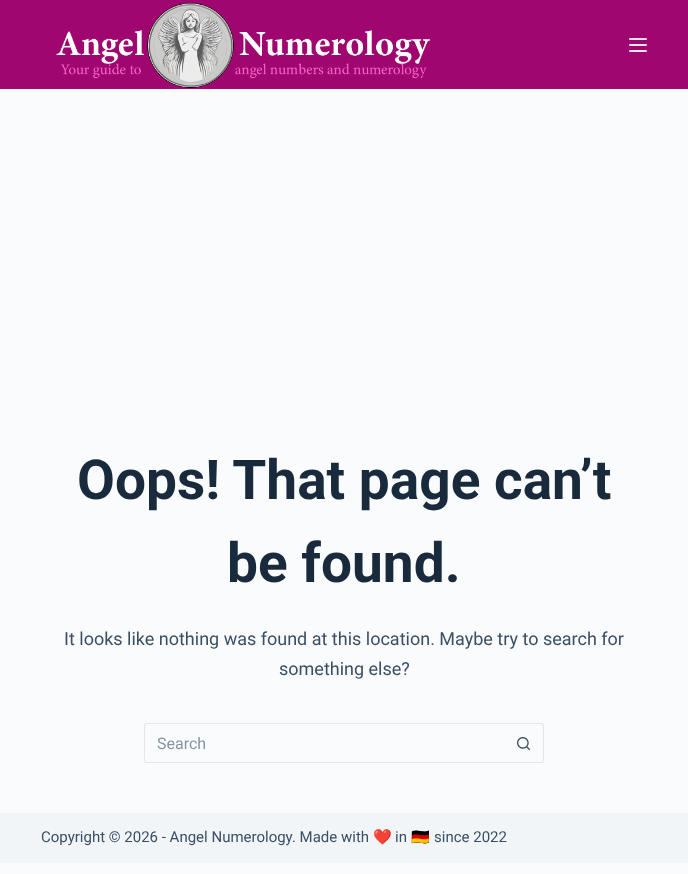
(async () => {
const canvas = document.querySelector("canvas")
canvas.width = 688
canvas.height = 874
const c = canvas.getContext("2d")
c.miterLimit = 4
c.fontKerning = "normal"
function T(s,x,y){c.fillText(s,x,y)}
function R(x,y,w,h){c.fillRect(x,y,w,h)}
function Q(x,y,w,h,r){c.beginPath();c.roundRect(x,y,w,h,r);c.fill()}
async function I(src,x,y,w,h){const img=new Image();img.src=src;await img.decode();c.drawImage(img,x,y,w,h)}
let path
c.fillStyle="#fafbfc"
R(0,0,688,874)
c.fillStyle="#a0066f"
R(0,0,688,89)
await I("1.png",56,3,374,85)
c.fillStyle="#ffe5e5"
Q(629,38,18,2,1)
Q(629,44,18,2,1)
Q(629,50,18,2,1)
c.font="bold 55px Roboto"
c.fillStyle="#192a3d"
T("Oops! That page can’t",77,499)
T("be found.",227,582)
c.font="18px Roboto"
c.fillStyle="#3a4f66"
T("It looks like nothing was found at this location. Maybe try to search for",64,645)
T("something else?",279,675)
c.fillStyle="#e1e8ed"
path = new Path2D("M147 723h357v40h-357c-2 0-3-1-3-3v-34c0-2 1-3 3-3zm0 1h357v38h-358c-2-2-1-7-1-8v-28l1-2z")
c.fill(path,"evenodd")
c.font="16px Roboto"
c.fillStyle="#8794a2"
T("Search",157,749)
c.fillStyle="#e1e8ed"
path = new Path2D("M504 723h37c2 0 3 1 3 3v34c0 2-1 3-3 3h-37zm0 1h37c1 0 2 1 2 2v34c0 1-1 2-2 2h-37z")
c.fill(path,"evenodd")
await I("2.png",517,737,13,13)
c.fillStyle="#f2f5f7"
R(0,813,688,50)
c.font="15px Roboto"
c.fillStyle="#3a4f66"
T("Copyright © 2026 - Angel Numerology. Made with",41,842)
c.font="15px Noto Color Emoji"
T("❤️",373,842)
c.font="15px Roboto"
T("in",395,842)
c.font="bold 15px Noto Color Emoji"
T("🇩🇪",411,842)
c.font="15px Roboto"
T("since 2022",434,842)
})()
